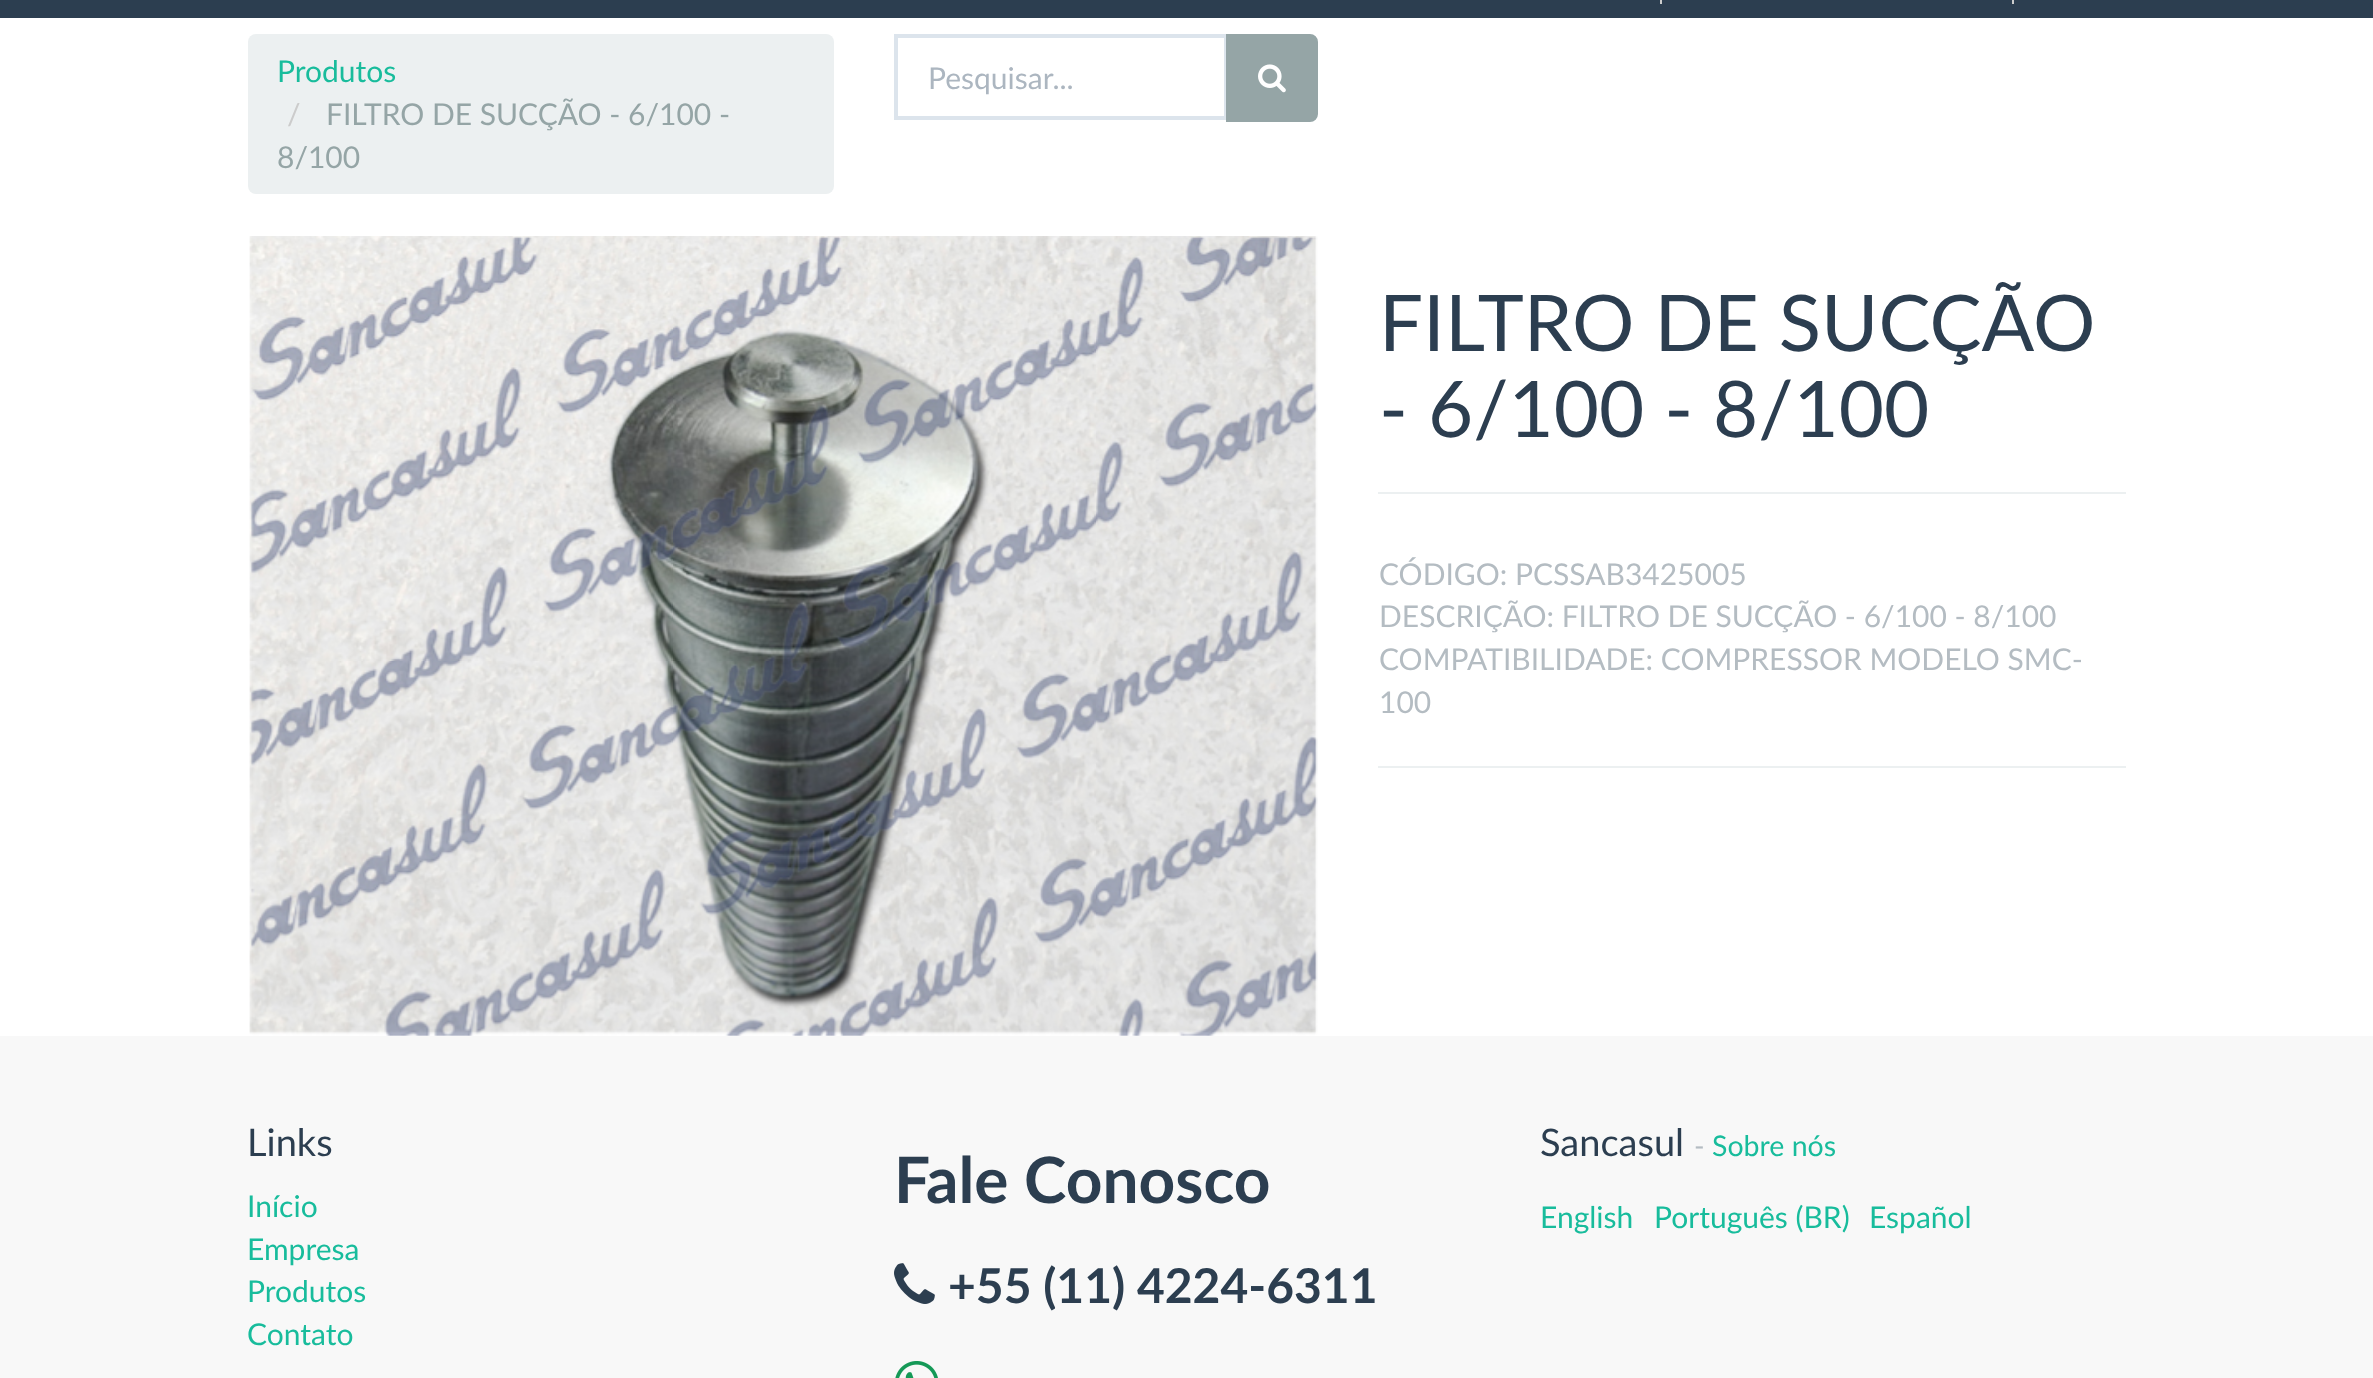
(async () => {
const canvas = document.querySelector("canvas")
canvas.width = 2373
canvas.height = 1378
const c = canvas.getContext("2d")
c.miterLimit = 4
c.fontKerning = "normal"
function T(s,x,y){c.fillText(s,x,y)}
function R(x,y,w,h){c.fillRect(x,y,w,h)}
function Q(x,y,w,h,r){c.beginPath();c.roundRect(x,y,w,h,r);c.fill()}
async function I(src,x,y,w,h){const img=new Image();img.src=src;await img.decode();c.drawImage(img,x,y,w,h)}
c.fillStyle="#fff"
R(0,0,2373,1378)
c.fillStyle="#2c3e50"
R(0,0,2373,18)
c.fillStyle="#ccc"
R(1660,0,2,4)
R(2012,0,2,4)
c.fillStyle="#ecf0f1"
Q(248,34,586,160,8)
c.font="30px Lato"
c.fillStyle="#18bc9c"
T("Produtos",277,82)
c.fillStyle="#ccc"
T("/",287,125)
c.fillStyle="#95a5a6"
T("FILTRO DE SUCÇÃO - 6/100 -",326,125)
T("8/100",277,168)
c.strokeStyle="#dce4ec"
c.lineWidth=4
c.strokeRect(896,36,330,82)
c.fillStyle="#acb6c0"
T("Pesquisar...",928,89)
c.fillStyle="#95a5a6"
c.beginPath()
c.roundRect(1227,35,90,86,[0,7,7,0])
c.fill()
c.strokeStyle="#95a5a6"
c.lineWidth=2
c.stroke()
await I("1.png",1258,64,28,29)
await I("2.png",249,236,1069,800)
c.font="78px Lato"
c.fillStyle="#2c3e50"
T("FILTRO DE SUCÇÃO",1379,351)
T("- 6/100 - 8/100",1379,437)
c.fillStyle="#ecf0f1"
R(1378,492,748,2)
c.font="30px Lato"
c.fillStyle="#b4bcc2"
T("CÓDIGO: PCSSAB3425005",1379,585)
T("DESCRIÇÃO: FILTRO DE SUCÇÃO - 6/100 - 8/100",1379,627)
T("COMPATIBILIDADE: COMPRESSOR MODELO SMC-",1379,670)
T("100",1379,713)
c.fillStyle="#ecf0f1"
R(1378,766,748,2)
c.fillStyle="#f8f8f8"
R(0,1036,2373,342)
c.font="38px Lato"
c.fillStyle="#2c3e50"
T("Links",247,1156)
c.font="30px Lato"
c.fillStyle="#18bc9c"
T("Início",247,1217)
T("Empresa",247,1260)
T("Produtos",247,1302)
T("Contato",247,1345)
c.font="bold 64px Lato"
c.fillStyle="#2c3e50"
T("Fale Conosco",894,1203)
await I("3.png",894,1263,41,41)
c.font="bold 48px Lato"
T("+55 (11) 4224-6311",948,1303)
await I("4.png",895,1361,43,17)
c.font="38px Lato"
T("Sancasul",1540,1156)
c.font="28.5px Lato"
c.fillStyle="#b4bcc2"
T("-",1694,1156)
c.fillStyle="#18bc9c"
T("Sobre nós",1712,1156)
c.font="30px Lato"
T("English",1540,1228)
T("Português (BR)",1654,1228)
T("Español",1869,1228)
})()
